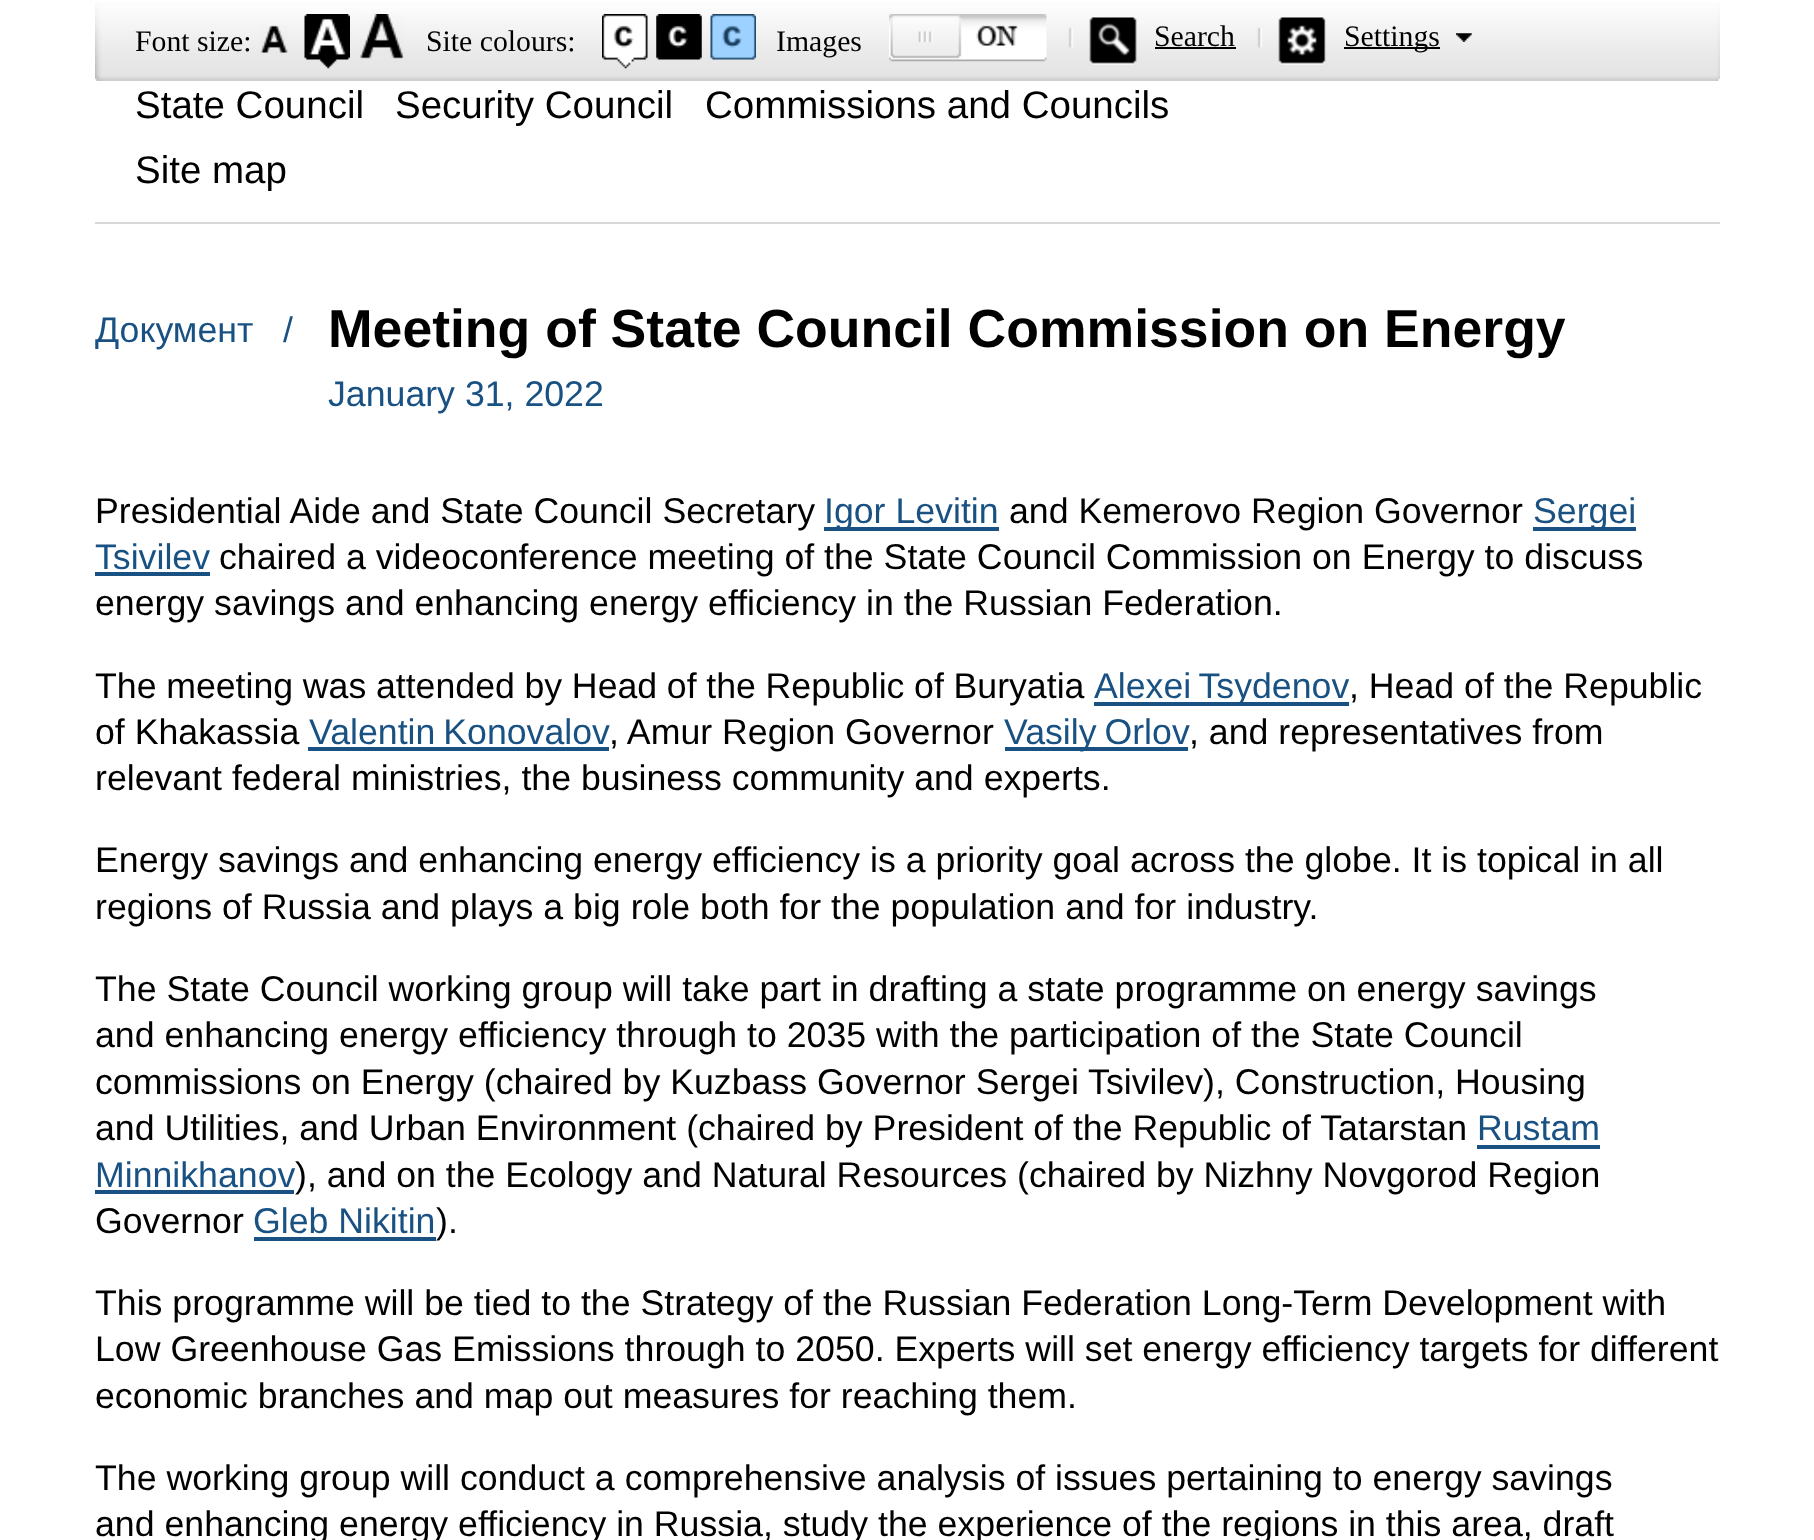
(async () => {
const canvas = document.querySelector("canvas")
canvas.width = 1814
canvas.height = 1540
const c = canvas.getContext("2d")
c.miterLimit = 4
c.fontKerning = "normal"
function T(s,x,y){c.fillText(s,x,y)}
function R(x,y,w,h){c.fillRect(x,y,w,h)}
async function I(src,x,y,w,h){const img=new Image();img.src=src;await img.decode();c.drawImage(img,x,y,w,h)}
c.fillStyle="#fff"
R(0,0,1814,1540)
await I("1.png",95,2,1625,79)
c.font="29.75px Liberation Serif"
c.fillStyle="#000"
T("Font size:",135,51)
await I("2.png",260,25,28,28)
await I("3.png",304,14,46,55)
await I("4.png",360,14,44,45)
T("Site colours:",426,51)
await I("5.png",602,14,46,55)
await I("6.png",656,14,46,46)
await I("7.png",710,14,46,46)
T("Images",776,51)
await I("8.png",889,14,158,48)
await I("9.png",1068,17,69,48)
T("Search",1154,46)
R(1155,47,81,2)
await I("10.png",1257,17,69,48)
R(1344,47,96,2)
T("Settings",1344,46)
await I("11.png",1456,33,16,9)
c.fillStyle="#d8d8d8"
R(95,222,1625,2)
c.font="38.5px Liberation Sans"
c.fillStyle="#000"
T("State Council",135,118)
T("Security Council",395,118)
T("Commissions and Councils",705,118)
T("Site map",135,183)
c.font="35.7px Liberation Sans"
c.fillStyle="#195183"
T("Документ",95,342)
T("/",283,342)
c.font="bold 53.55px Liberation Sans"
c.fillStyle="#000"
T("Meeting of State Council Commission on Energy",328,347)
c.font="35.7px Liberation Sans"
c.fillStyle="#195183"
T("January 31, 2022",328,406)
c.fillStyle="#000"
T("Presidential Aide and State Council Secretary",95,523)
c.fillStyle="#195183"
R(824,527,175,4)
T("Igor Levitin",824,523)
c.fillStyle="#000"
T("and Kemerovo Region Governor",1009,523)
c.fillStyle="#195183"
R(1533,527,103,4)
T("Sergei",1533,523)
T("Tsivilev",95,569)
R(95,572,115,4)
c.fillStyle="#000"
T("chaired a videoconference meeting of the State Council Commission on Energy to discuss",219,569)
T("energy savings and enhancing energy efficiency in the Russian Federation.",95,615)
c.wordSpacing="-0.25px"
T("The meeting was attended by Head of the Republic of Buryatia",95,698)
c.fillStyle="#195183"
R(1094,702,255,4)
c.wordSpacing="-2px"
T("Alexei Tsydenov",1094,698)
c.wordSpacing="0px"
c.fillStyle="#000"
T(", Head of the Republic",1349,698)
T("of Khakassia",95,744)
c.wordSpacing="-2px"
c.fillStyle="#195183"
T("Valentin Konovalov",309,744)
R(308,747,301,4)
c.wordSpacing="0px"
c.fillStyle="#000"
T(", Amur Region Governor",609,744)
c.fillStyle="#195183"
R(1005,747,183,4)
c.wordSpacing="-2px"
T("Vasily Orlov",1004,744)
c.wordSpacing="0px"
c.fillStyle="#000"
T(", and representatives from",1189,744)
T("relevant federal ministries, the business community and experts.",95,790)
T("Energy savings and enhancing energy efficiency is a priority goal across the globe. It is topical in all",95,872)
T("regions of Russia and plays a big role both for the population and for industry.",95,919)
T("The State Council working group will take part in drafting a state programme on energy savings",95,1001)
T("and enhancing energy efficiency through to 2035 with the participation of the State Council",95,1047)
T("commissions on Energy (chaired by Kuzbass Governor Sergei Tsivilev), Construction, Housing",95,1094)
T("and Utilities, and Urban Environment (chaired by President of the Republic of Tatarstan",95,1140)
c.fillStyle="#195183"
T("Rustam",1477,1140)
R(1477,1145,123,4)
T("Minnikhanov",95,1187)
R(95,1190,199,4)
c.fillStyle="#000"
T("), and on the Ecology and Natural Resources (chaired by Nizhny Novgorod Region",295,1187)
T("Governor",95,1233)
c.fillStyle="#195183"
T("Gleb Nikitin",253,1233)
R(254,1237,182,4)
c.fillStyle="#000"
T(").",436,1233)
T("This programme will be tied to the Strategy of the Russian Federation Long-Term Development with",95,1315)
T("Low Greenhouse Gas Emissions through to 2050. Experts will set energy efficiency targets for different",95,1361)
T("economic branches and map out measures for reaching them.",95,1408)
T("The working group will conduct a comprehensive analysis of issues pertaining to energy savings",95,1490)
T("and enhancing energy efficiency in Russia, study the experience of the regions in this area, draft",95,1536)
})()
